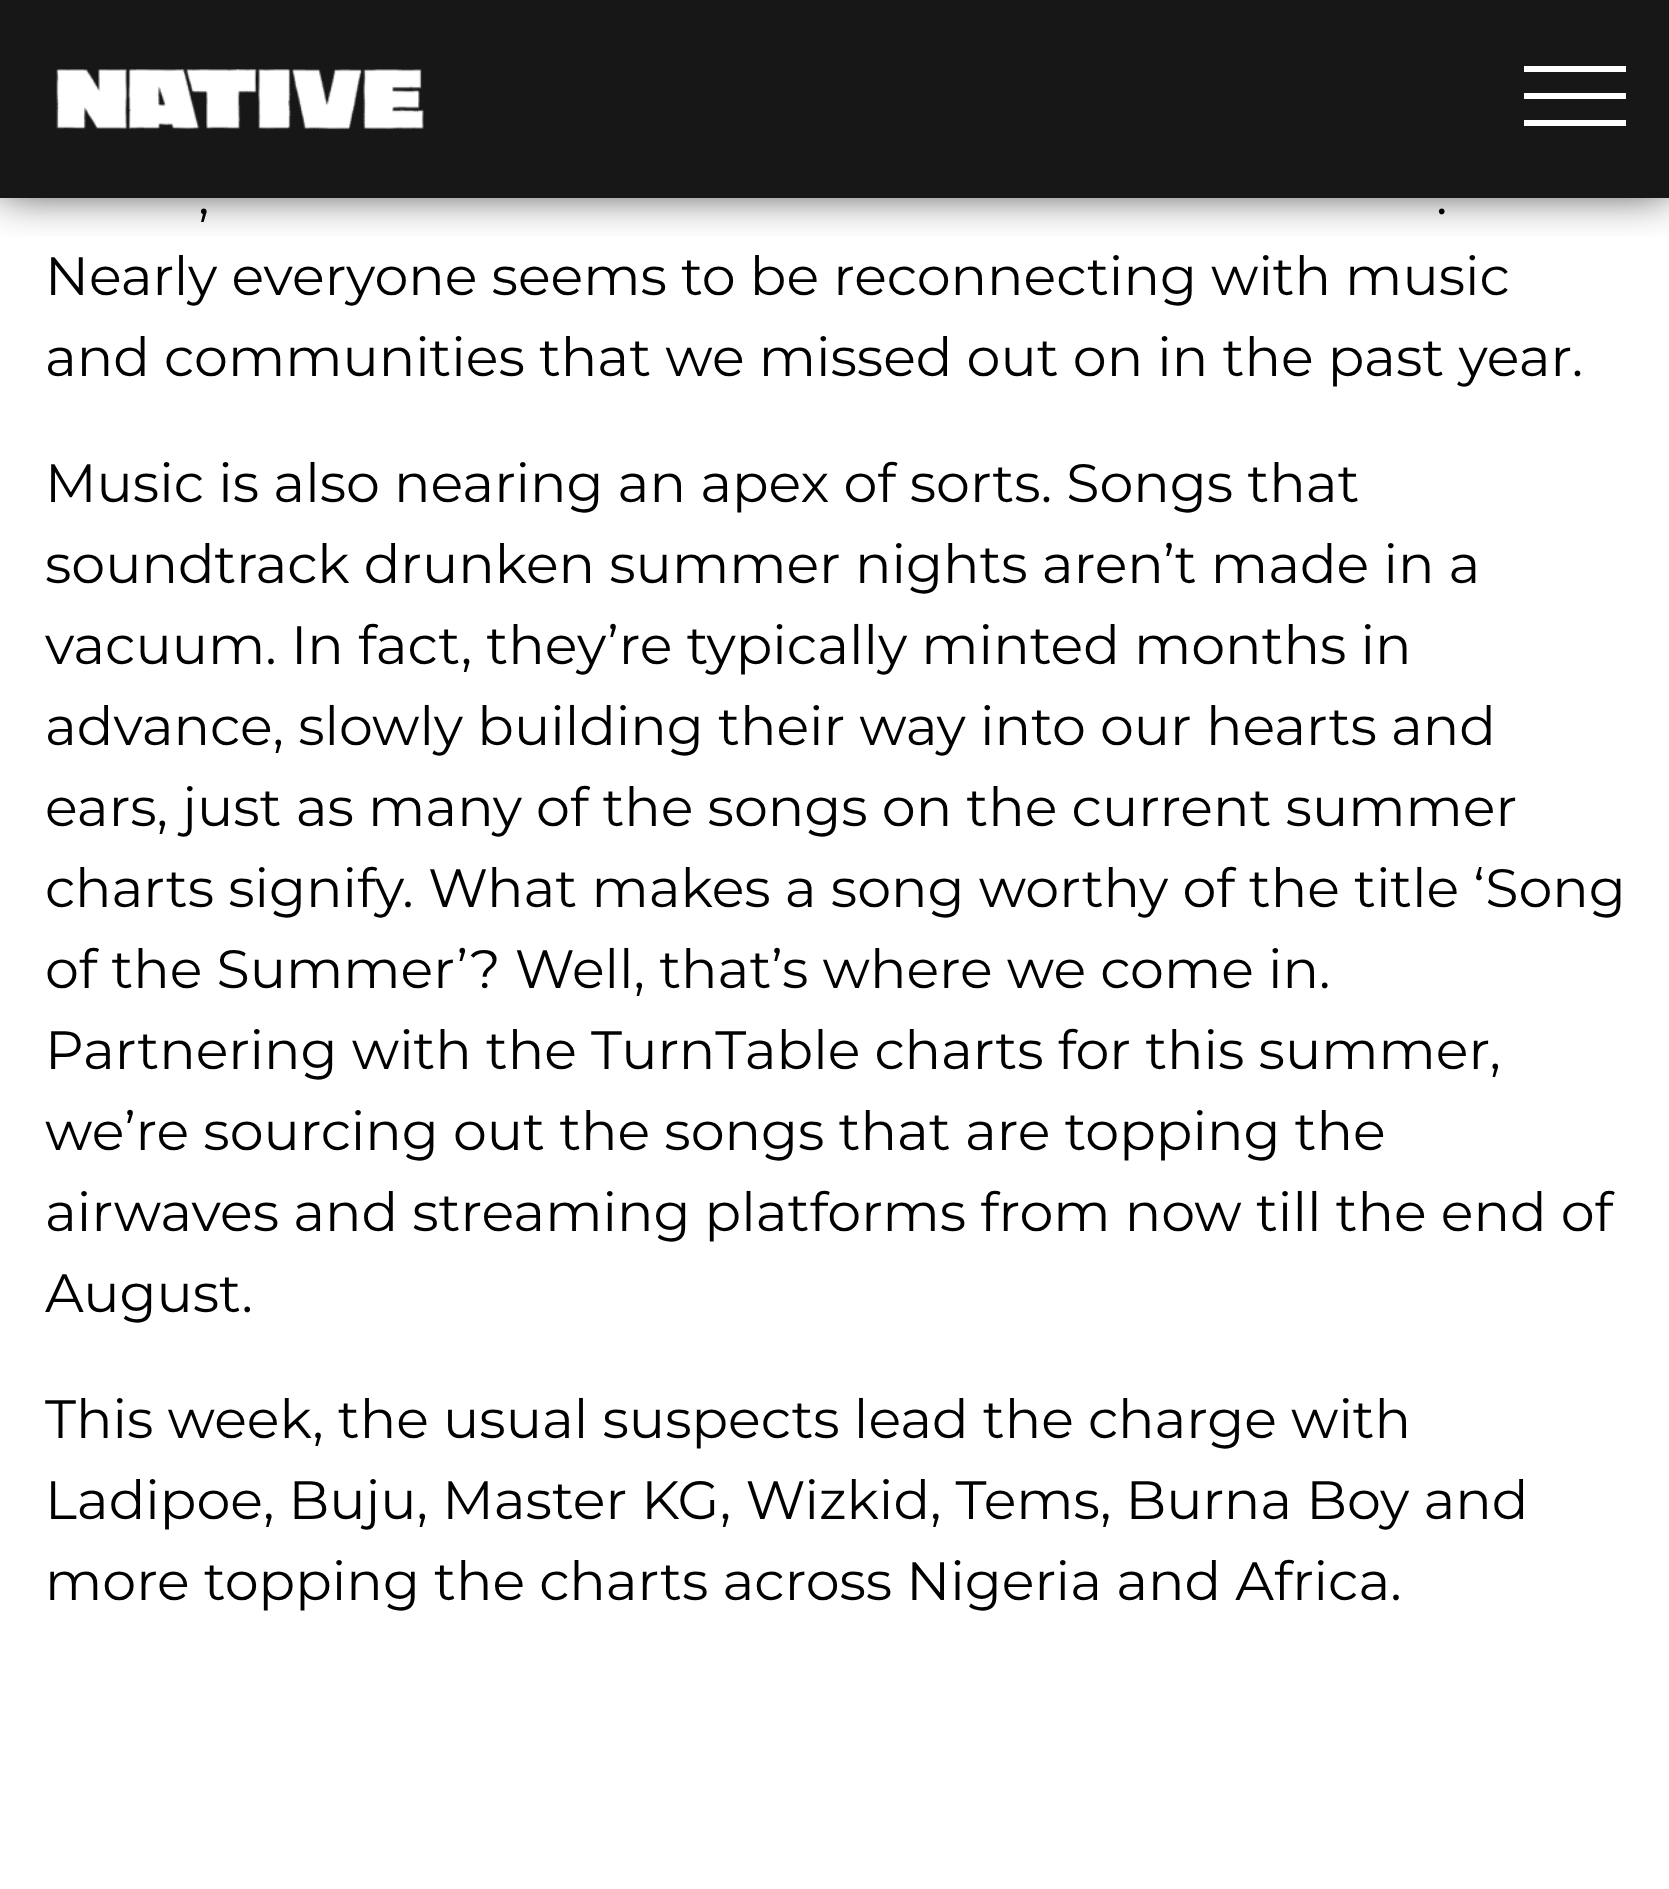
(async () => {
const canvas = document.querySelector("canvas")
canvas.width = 1669
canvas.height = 1889
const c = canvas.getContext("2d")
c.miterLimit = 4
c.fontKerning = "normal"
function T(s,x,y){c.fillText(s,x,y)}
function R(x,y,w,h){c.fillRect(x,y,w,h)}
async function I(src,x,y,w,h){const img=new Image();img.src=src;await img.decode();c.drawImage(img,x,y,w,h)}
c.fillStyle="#fff"
R(0,0,1669,1889)
c.save()
c.beginPath()
c.rect(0,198,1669,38)
c.clip()
c.fillStyle="#000000cc"
c.filter="blur(22.5px)"
c.beginPath()
c.rect(0,-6,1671,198)
c.fill()
c.filter="none"
c.restore()
c.fillStyle="#0b0b0bf2"
R(0,0,1669,198)
await I("1.png",56,69,368,61)
c.fillStyle="#fff"
R(1524,66,102,6)
R(1524,93,102,6)
R(1524,120,102,6)
c.font="54px Montserrat"
c.fillStyle="#000"
T(",",198,214)
T(".",1436,214)
T("Nearly everyone seems to be reconnecting with music",45,295)
T("and communities that we missed out on in the past year.",45,376)
T("Music is also nearing an apex of sorts. Songs that",45,502)
T("soundtrack drunken summer nights aren’t made in a",45,583)
T("vacuum. In fact, they’re typically minted months in",45,664)
T("advance, slowly building their way into our hearts and",45,745)
T("ears, just as many of the songs on the current summer",45,826)
T("charts signify. What makes a song worthy of the title ‘Song",45,907)
T("of the Summer’? Well, that’s where we come in.",45,988)
T("Partnering with the TurnTable charts for this summer,",45,1069)
T("we’re sourcing out the songs that are topping the",45,1150)
T("airwaves and streaming platforms from now till the end of",45,1231)
T("August.",45,1312)
T("This week, the usual suspects lead the charge with",45,1438)
T("Ladipoe, Buju, Master KG, Wizkid, Tems, Burna Boy and",45,1519)
T("more topping the charts across Nigeria and Africa.",45,1600)
})()
